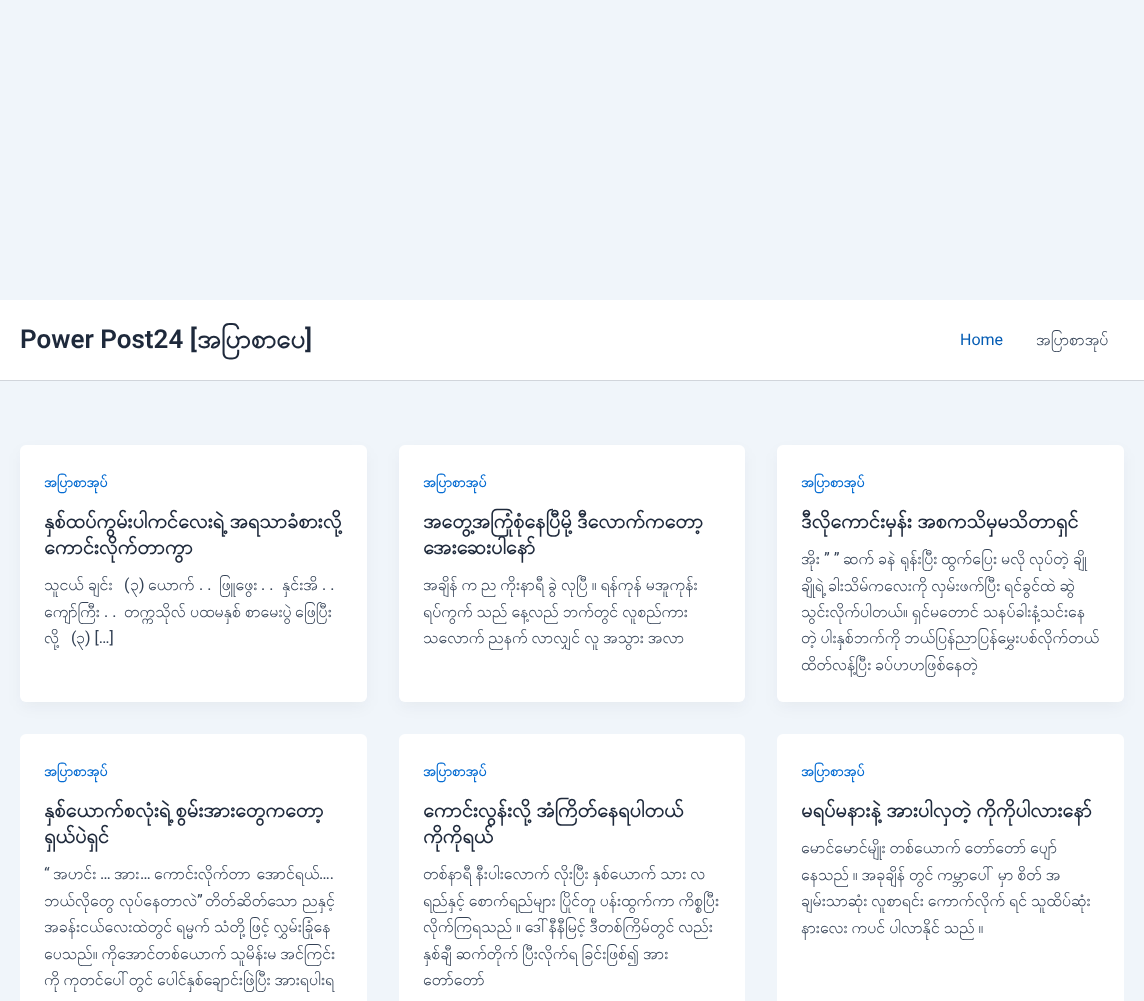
(async () => {
const canvas = document.querySelector("canvas")
canvas.width = 1144
canvas.height = 1001
const c = canvas.getContext("2d")
c.miterLimit = 4
c.fontKerning = "normal"
function T(s,x,y){c.fillText(s,x,y)}
function R(x,y,w,h){c.fillRect(x,y,w,h)}
function Q(x,y,w,h,r){c.beginPath();c.roundRect(x,y,w,h,r);c.fill()}
c.fillStyle="#f0f5fa"
R(0,0,1144,1001)
c.fillStyle="#fff"
R(0,300,1144,80)
c.fillStyle="#d1d5db"
R(0,380,1144,1)
c.font="600 26px Roboto"
c.fillStyle="#1e293b"
T("Power Post24 [",20,348)
c.font="bold 26px Padauk"
T("အပြာစာပေ",197,348)
c.font="600 26px Roboto"
T("]",305,348)
c.font="16px Roboto"
c.fillStyle="#045cb4"
T("Home",960,345)
c.font="16px Padauk"
c.fillStyle="#334155"
T("အပြာစာအုပ်",1036,345)
c.fillStyle="#1018280d"
c.filter="blur(7.5px)"
c.beginPath()
c.roundRect(22,453,343,253,4)
c.fill()
c.filter="none"
c.fillStyle="#fff"
Q(20,445,347,257,6)
c.font="bold 14px Padauk"
c.fillStyle="#046bd2"
T("အပြာစာအုပ်",44,487)
c.wordSpacing="-2px"
c.font="bold 20px Padauk"
c.fillStyle="#1e293b"
T("နှစ်ထပ်ကွမ်းပါကင်လေးရဲ့ အရသာခံစားလို့",44,528)
c.wordSpacing="0px"
T("ကောင်းလိုက်တာကွာ",44,554)
c.font="16px Padauk"
c.fillStyle="#334155"
T("သူငယ်",44,590)
T("ချင်း",88,590)
c.font="16px Roboto"
T("(",124,590)
c.font="16px Padauk"
T("၃",130,590)
c.font="16px Roboto"
T(")",139,590)
c.font="16px Padauk"
T("ယောက်",148,590)
c.font="16px Roboto"
T(". .",199,590)
c.font="16px Padauk"
T("ဖြူဖွေး",219,590)
c.font="16px Roboto"
T(". .",261,590)
c.font="16px Padauk"
T("နှင်းအိ",282,590)
c.font="16px Roboto"
T(". .",322,590)
c.font="16px Padauk"
T("ကျော်ကြီး",44,617)
c.font="16px Roboto"
T(". .",104,617)
c.font="16px Padauk"
T("တက္ကသိုလ်",124,617)
T("ပထမနှစ်",190,617)
T("စာမေးပွဲ",245,617)
T("ဖြေပြီး",295,617)
T("လို့",44,643)
c.font="16px Roboto"
T("(",71,643)
c.font="16px Padauk"
T("၃",76,643)
c.font="16px Roboto"
T(") […]",85,643)
c.fillStyle="#1018280d"
c.filter="blur(7.5px)"
c.beginPath()
c.roundRect(401,453,342,253,4)
c.fill()
c.filter="none"
c.fillStyle="#fff"
Q(399,445,346,257,6)
c.font="bold 14px Padauk"
c.fillStyle="#046bd2"
T("အပြာစာအုပ်",423,487)
c.wordSpacing="-2px"
c.font="bold 20px Padauk"
c.fillStyle="#1e293b"
T("အတွေ့အကြုံစုံနေပြီမို့ ဒီလောက်ကတော့",423,528)
c.wordSpacing="0px"
T("အေးဆေးပါနော်",423,554)
c.wordSpacing="-2px"
c.font="16px Padauk"
c.fillStyle="#334155"
T("အချိန် က ည ကိုးနာရီ ခွဲ လုပြီ ။ ရန်ကုန် မအူကုန်း",423,590)
T("ရပ်ကွက် သည် နေ့လည် ဘက်တွင် လူစည်ကား",423,617)
T("သလောက် ညနက် လာလျှင် လူ အသွား အလာ",423,643)
c.fillStyle="#1018280d"
c.filter="blur(7.5px)"
c.beginPath()
c.roundRect(779,453,343,253,4)
c.fill()
c.filter="none"
c.fillStyle="#fff"
Q(777,445,347,257,6)
c.wordSpacing="0px"
c.font="bold 14px Padauk"
c.fillStyle="#046bd2"
T("အပြာစာအုပ်",801,487)
c.wordSpacing="-2px"
c.font="bold 20px Padauk"
c.fillStyle="#1e293b"
T("ဒီလိုကောင်းမှန်း အစကသိမှမသိတာရှင်",801,528)
c.wordSpacing="0px"
c.font="16px Padauk"
c.fillStyle="#334155"
T("အိုး",801,564)
c.font="16px Roboto"
T("” ”",824,564)
c.font="16px Padauk"
T("ဆက်",843,564)
T("ခနဲ",878,564)
T("ရုန်းပြီး",900,564)
T("ထွက်ပြေး",941,564)
T("မလို",1001,564)
T("လုပ်တဲ့",1029,564)
T("ချို",1073,564)
c.wordSpacing="-2px"
T("ချိုရဲ့ ခါးသိမ်ကလေးကို လှမ်းဖက်ပြီး ရင်ခွင်ထဲ ဆွဲ",801,591)
T("သွင်းလိုက်ပါတယ်။ ရှင်မတောင် သနပ်ခါးနံ့သင်းနေ",801,617)
T("တဲ့ ပါးနှစ်ဘက်ကို ဘယ်ပြန်ညာပြန်မွှေးပစ်လိုက်တယ်",801,643)
T("ထိတ်လန့်ပြီး ခပ်ဟဟဖြစ်နေတဲ့",801,670)
c.fillStyle="#fff"
Q(20,734,347,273,6)
c.wordSpacing="0px"
c.font="bold 14px Padauk"
c.fillStyle="#046bd2"
T("အပြာစာအုပ်",44,776)
c.wordSpacing="-2px"
c.font="bold 20px Padauk"
c.fillStyle="#1e293b"
T("နှစ်ယောက်စလုံးရဲ့ စွမ်းအားတွေကတော့",44,817)
c.wordSpacing="0px"
T("ရှယ်ပဲရှင်",44,843)
c.font="16px Roboto"
c.fillStyle="#334155"
T("“",44,879)
c.font="16px Padauk"
T("အဟင်း",53,879)
T("ကောင်းလိုက်တာ အောင်ရယ်",154,879)
c.font="16px Roboto"
T("…",100,879)
c.font="16px Padauk"
T("အား",114,879)
c.font="16px Roboto"
T("…",140,879)
T("….",319,879)
c.wordSpacing="-1px"
c.font="16px Padauk"
T("ဘယ်လိုတွေ လုပ်နေတာလဲ",44,906)
c.wordSpacing="0px"
c.font="16px Roboto"
T("”",197,906)
c.wordSpacing="-1px"
c.font="16px Padauk"
T("တိတ်ဆိတ်သော ညနှင့်",205,906)
c.wordSpacing="-2px"
T("အခန်းငယ်လေးထဲတွင် ရမ္မက် သံတို့ဖြင့် လွှမ်းခြုံနေ",44,932)
T("ပေသည်။ ကိုအောင်တစ်ယောက် သူမိန်းမ အင်ကြင်း",44,959)
T("ကို ကုတင်ပေါ်တွင် ပေါင်နှစ်ချောင်းဖြဲပြီး အားရပါးရ",44,985)
c.fillStyle="#fff"
Q(399,734,346,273,6)
c.wordSpacing="0px"
c.font="bold 14px Padauk"
c.fillStyle="#046bd2"
T("အပြာစာအုပ်",423,776)
c.wordSpacing="-2px"
c.font="bold 20px Padauk"
c.fillStyle="#1e293b"
T("ကောင်းလွန်းလို့ အံကြိတ်နေရပါတယ်",423,817)
c.wordSpacing="0px"
T("ကိုကိုရယ်",423,843)
c.wordSpacing="-2px"
c.font="16px Padauk"
c.fillStyle="#334155"
T("တစ်နာရီ နီးပါးလောက် လိုးပြီး နှစ်ယောက် သား လ",423,879)
T("ရည်နှင့် စောက်ရည်များ ပြိုင်တူ ပန်းထွက်ကာ ကိစ္စပြီး",423,906)
T("လိုက်ကြရသည် ။ ဒေါ်နီနီမြင့် ဒီတစ်ကြိမ်တွင် လည်း",423,932)
T("နှစ်ချီ ဆက်တိုက် ပြီးလိုက်ရ ခြင်းဖြစ်၍ အား",423,959)
c.wordSpacing="0px"
T("တော်တော်",423,985)
c.fillStyle="#fff"
Q(777,734,347,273,6)
c.font="bold 14px Padauk"
c.fillStyle="#046bd2"
T("အပြာစာအုပ်",801,776)
c.wordSpacing="-2px"
c.font="bold 20px Padauk"
c.fillStyle="#1e293b"
T("မရပ်မနားနဲ့ အားပါလှတဲ့ ကိုကိုပါလားနော်",801,817)
c.font="16px Padauk"
c.fillStyle="#334155"
T("မောင်မောင်မျိုး တစ်ယောက် တော်တော် ပျော်",801,853)
T("နေသည် ။ အခုချိန် တွင် ကမ္ဘာပေါ် မှာ စိတ် အ",801,880)
T("ချမ်းသာဆုံး လူစာရင်း ကောက်လိုက် ရင် သူထိပ်ဆုံး",801,906)
T("နားလေး ကပင် ပါလာနိုင် သည် ။",801,933)
})()
